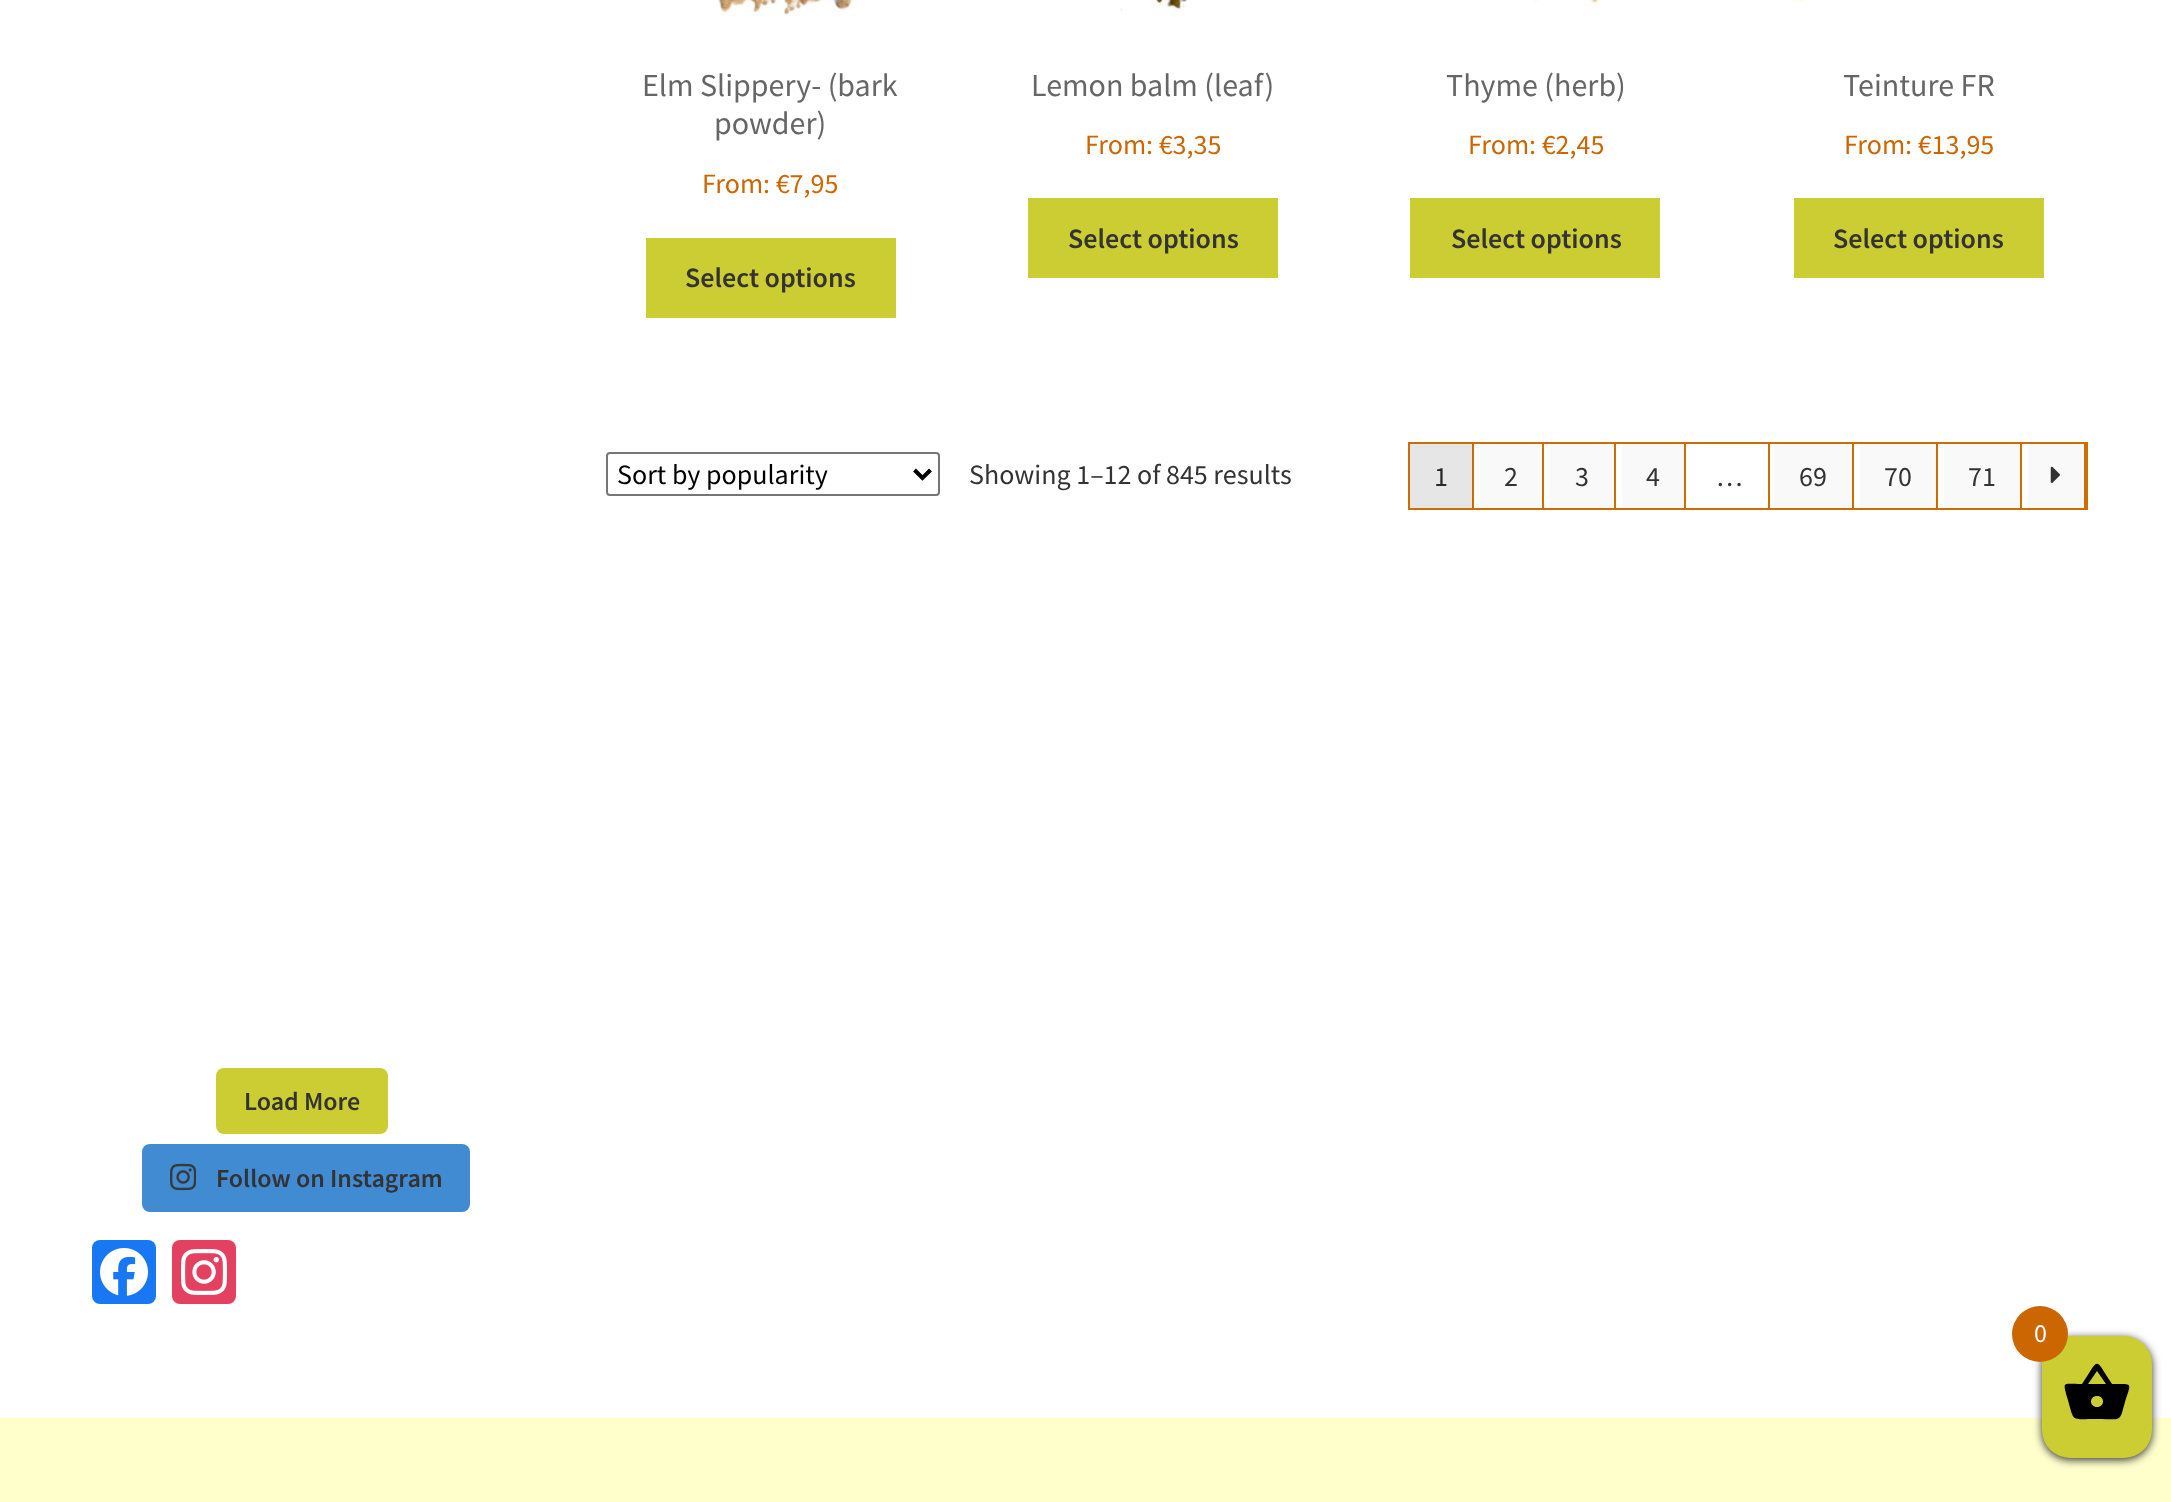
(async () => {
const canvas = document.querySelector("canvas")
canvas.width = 2171
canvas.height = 1502
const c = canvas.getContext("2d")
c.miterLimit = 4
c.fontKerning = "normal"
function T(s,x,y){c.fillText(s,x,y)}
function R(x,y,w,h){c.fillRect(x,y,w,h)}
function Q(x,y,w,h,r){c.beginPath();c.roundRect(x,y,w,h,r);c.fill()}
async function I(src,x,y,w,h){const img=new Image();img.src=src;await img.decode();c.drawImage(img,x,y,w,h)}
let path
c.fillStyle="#fff"
R(0,0,2171,1502)
await I("1.png",718,0,147,16)
c.font="32px Source Sans Pro"
c.fillStyle="#666"
T("Elm Slippery- (bark",642,96)
T("powder)",714,134)
c.font="28px Source Sans Pro"
c.fillStyle="#c60"
T("From: €7,95",702,193)
c.fillStyle="#cc3"
R(646,238,250,80)
c.font="600 28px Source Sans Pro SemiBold"
c.fillStyle="#333"
T("Select options",685,287)
await I("2.png",1120,0,71,16)
c.font="32px Source Sans Pro"
c.fillStyle="#666"
T("Lemon balm (leaf)",1031,96)
c.font="28px Source Sans Pro"
c.fillStyle="#c60"
T("From: €3,35",1085,154)
c.fillStyle="#cc3"
R(1028,198,250,80)
c.font="600 28px Source Sans Pro SemiBold"
c.fillStyle="#333"
T("Select options",1068,248)
await I("3.png",1517,0,83,12)
c.font="32px Source Sans Pro"
c.fillStyle="#666"
T("Thyme (herb)",1446,96)
c.font="28px Source Sans Pro"
c.fillStyle="#c60"
T("From: €2,45",1468,154)
c.fillStyle="#cc3"
R(1410,198,250,80)
c.font="600 28px Source Sans Pro SemiBold"
c.fillStyle="#333"
T("Select options",1451,248)
await I("4.png",1780,0,30,3)
c.font="32px Source Sans Pro"
c.fillStyle="#666"
T("Teinture FR",1843,96)
c.font="28px Source Sans Pro"
c.fillStyle="#c60"
T("From: €13,95",1844,154)
c.fillStyle="#cc3"
R(1794,198,250,80)
c.font="600 28px Source Sans Pro SemiBold"
c.fillStyle="#333"
T("Select options",1833,248)
c.beginPath()
c.roundRect(607,453,332,42,3)
c.strokeStyle="#767676"
c.lineWidth=2
c.stroke()
path = new Path2D("M914.5 470l8 8l8-8")
c.strokeStyle="#000"
c.lineWidth=4
c.stroke(path)
c.font="28px Source Sans Pro"
c.fillStyle="#000"
T("Sort by popularity",617,484)
c.fillStyle="#333"
T("Showing 1–12 of 845 results",969,484)
c.strokeStyle="#cc6d00"
c.lineWidth=2
c.strokeRect(1409,443,678,66)
c.fillStyle="#cc6d00"
R(1472,444,2,64)
c.fillStyle="#e6e6e6"
R(1410,444,62,64)
c.fillStyle="#292929"
T("1",1434,486)
c.fillStyle="#cc6d00"
R(1542,444,2,64)
c.fillStyle="#f9f9f9"
R(1480,444,62,64)
c.fillStyle="#333"
T("2",1504,486)
c.fillStyle="#cc6d00"
R(1614,444,2,64)
c.fillStyle="#f9f9f9"
R(1550,444,64,64)
c.fillStyle="#333"
T("3",1575,486)
c.fillStyle="#cc6d00"
R(1684,444,2,64)
c.fillStyle="#f9f9f9"
R(1622,444,62,64)
c.fillStyle="#333"
T("4",1646,486)
c.fillStyle="#cc6d00"
R(1768,444,2,64)
c.fillStyle="#333"
T("…",1716,486)
c.fillStyle="#cc6d00"
R(1852,444,2,64)
c.fillStyle="#f9f9f9"
R(1774,444,78,64)
c.fillStyle="#333"
T("69",1799,486)
c.fillStyle="#cc6d00"
R(1936,444,2,64)
c.fillStyle="#f9f9f9"
R(1860,444,76,64)
c.fillStyle="#333"
T("70",1884,486)
c.fillStyle="#cc6d00"
R(2020,444,2,64)
c.fillStyle="#f9f9f9"
R(1944,444,76,64)
c.fillStyle="#333"
T("71",1968,486)
c.fillStyle="#cc6d00"
R(2084,444,2,64)
c.fillStyle="#f9f9f9"
R(2028,444,56,64)
await I("5.png",2050,466,10,17)
c.fillStyle="#cc3"
Q(216,1068,172,66,8)
c.font="600 26px Source Sans Pro SemiBold"
c.fillStyle="#333"
T("Load More",244,1110)
c.fillStyle="#408bd1"
Q(142,1144,328,68,8)
await I("6.png",170,1163,26,28)
c.fillStyle="#333"
T("Follow on Instagram",216,1187)
c.fillStyle="#1877f2"
Q(92,1240,64,64,8)
await I("7.png",100,1248,48,48)
c.fillStyle="#e4405f"
Q(172,1240,64,64,8)
await I("8.png",181,1249,46,46)
c.fillStyle="#ffc"
R(0,1418,2171,84)
c.fillStyle="#333"
c.filter="blur(4px)"
c.beginPath()
c.roundRect(2042,1338,110,122,28)
c.fill()
c.filter="none"
c.fillStyle="#cc3"
Q(2042,1336,110,122,28)
c.fillStyle="#c60"
c.beginPath()
c.arc(2040,1334,28,0,7)
c.fill()
c.font="26px Source Sans Pro"
c.fillStyle="#fff"
T("0",2034,1342)
c.fillStyle="#000"
path = new Path2D("M2097 1407c8 0 8-11 0-11c-8 0-8 11 0 11zm-9-23h18l-9-13zm24 0c22 0 19-2 13 18c-6 21-2 17-28 17c-28 0-22 4-30-22c-4-16-5-13 15-13c18-27 12-27 30 0z")
c.fill(path)
})()
